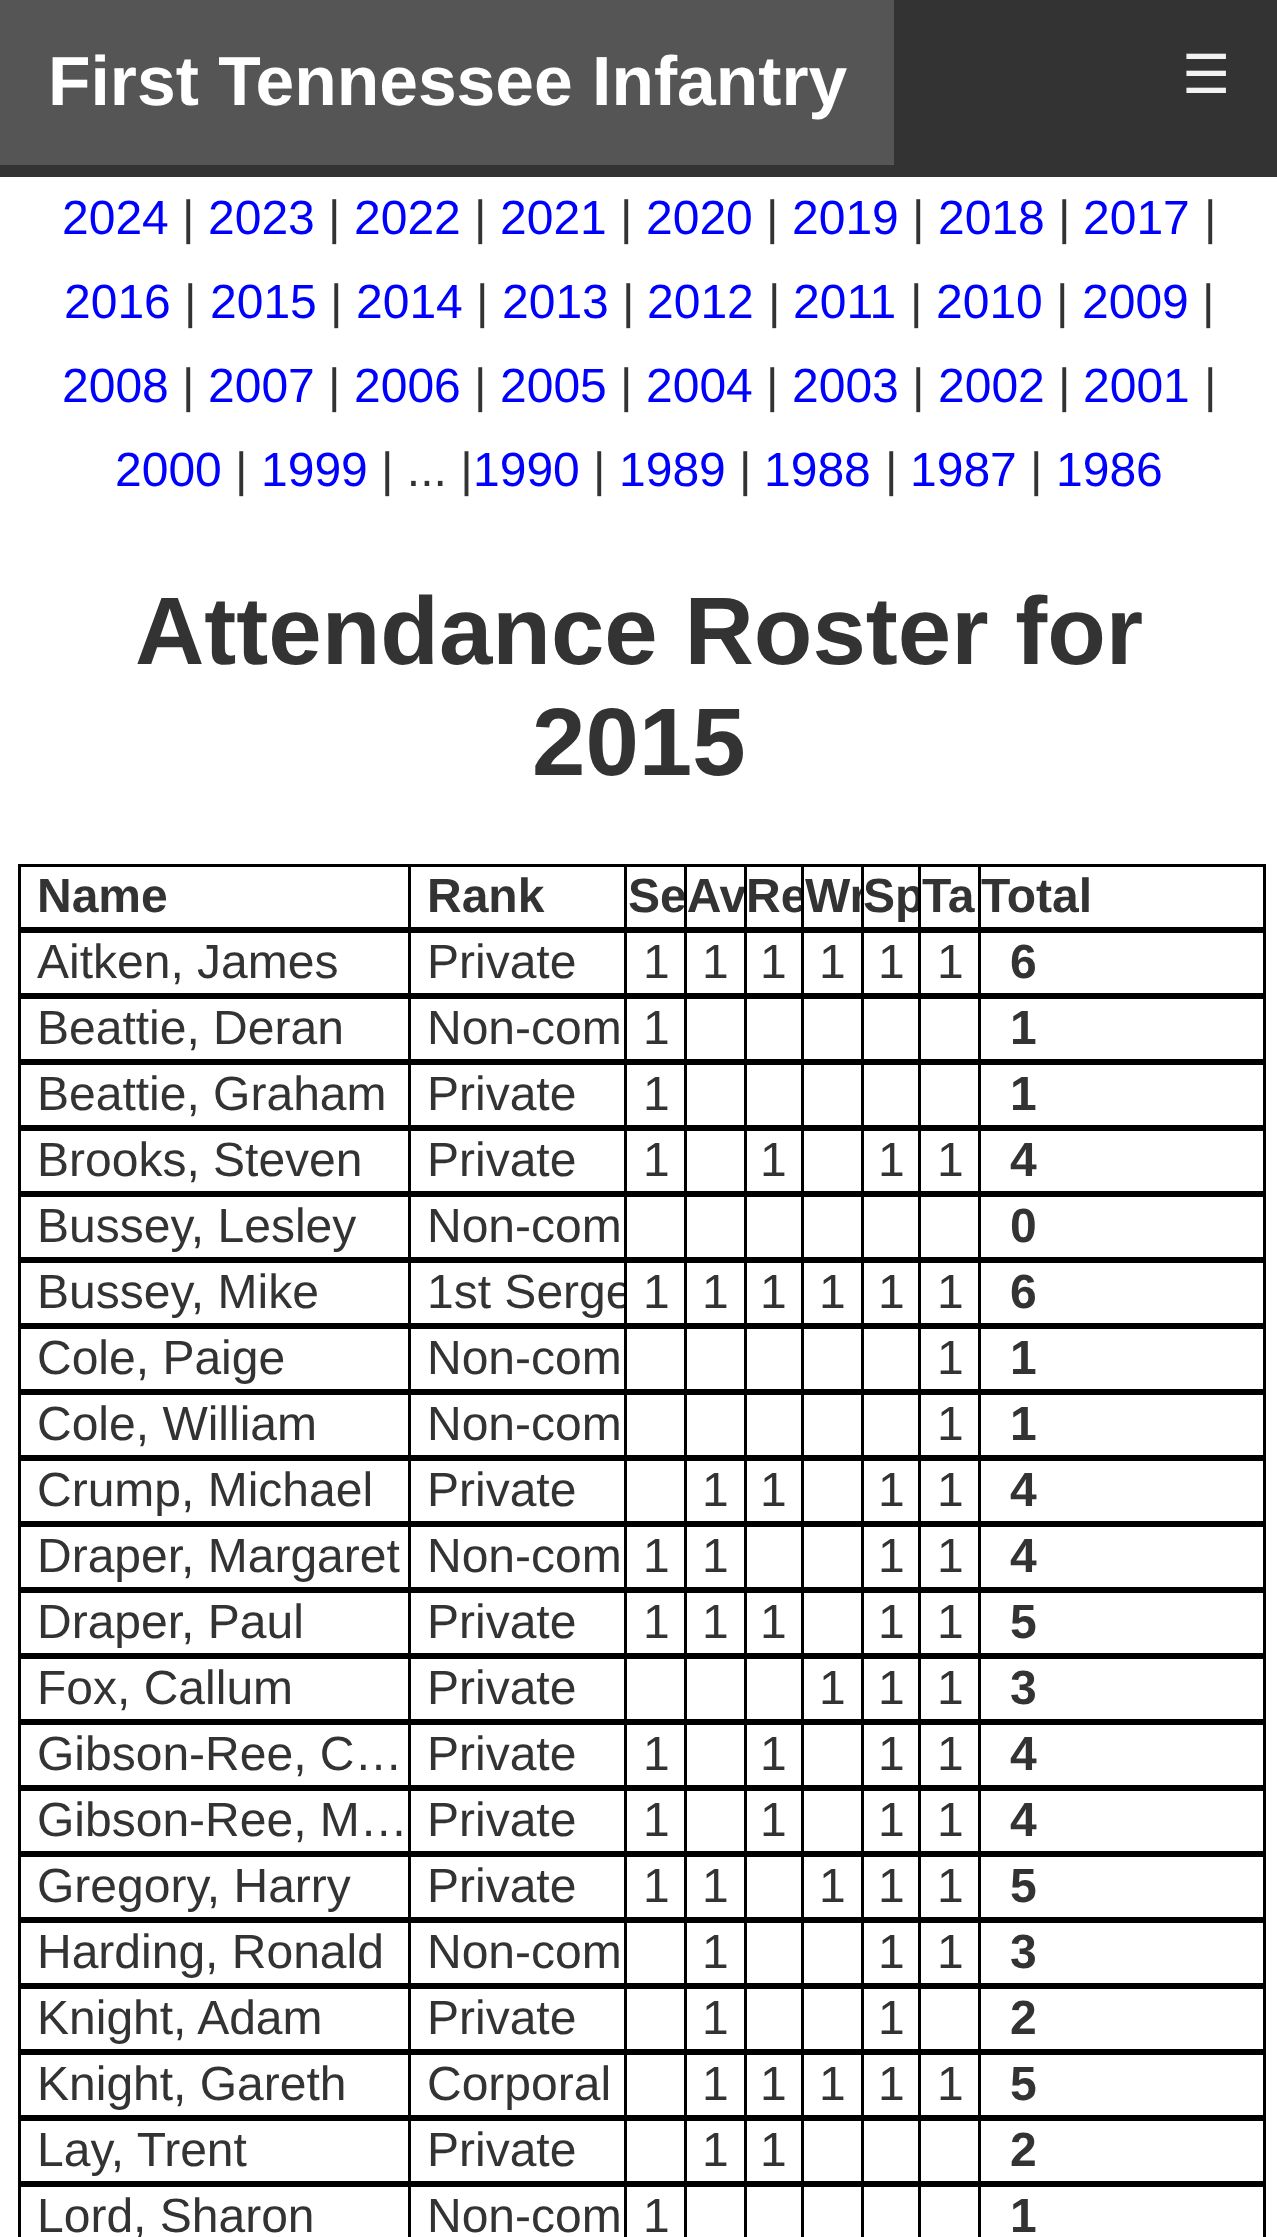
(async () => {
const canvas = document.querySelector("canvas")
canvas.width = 1277
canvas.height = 2237
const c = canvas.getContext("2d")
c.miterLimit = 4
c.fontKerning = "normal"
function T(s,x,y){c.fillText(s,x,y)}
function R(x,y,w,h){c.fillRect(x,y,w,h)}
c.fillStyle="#fff"
R(0,0,1277,2237)
c.fillStyle="#333"
R(0,0,1277,177)
c.fillStyle="#555"
R(0,0,894,165)
c.font="bold 69.6px Liberation Sans"
c.fillStyle="#fff"
T("First Tennessee Infantry",48,105)
c.font="54px DejaVu Sans"
c.fillStyle="#f2f2f2"
T("☰",1182,93)
c.font="48px Liberation Sans"
c.fillStyle="#00f"
T("2024",62,234)
c.fillStyle="#333"
T("|",182,234)
c.fillStyle="#00f"
T("2023",208,234)
c.fillStyle="#333"
T("|",328,234)
c.fillStyle="#00f"
T("2022",354,234)
c.fillStyle="#333"
T("|",474,234)
c.fillStyle="#00f"
T("2021",500,234)
c.fillStyle="#333"
T("|",620,234)
c.fillStyle="#00f"
T("2020",646,234)
c.fillStyle="#333"
T("|",766,234)
c.fillStyle="#00f"
T("2019",792,234)
c.fillStyle="#333"
T("|",912,234)
c.fillStyle="#00f"
T("2018",938,234)
c.fillStyle="#333"
T("|",1058,234)
c.fillStyle="#00f"
T("2017",1083,234)
c.fillStyle="#333"
T("|",1204,234)
c.fillStyle="#00f"
T("2016",64,318)
c.fillStyle="#333"
T("|",184,318)
c.fillStyle="#00f"
T("2015",210,318)
c.fillStyle="#333"
T("|",330,318)
c.fillStyle="#00f"
T("2014",356,318)
c.fillStyle="#333"
T("|",476,318)
c.fillStyle="#00f"
T("2013",502,318)
c.fillStyle="#333"
T("|",622,318)
c.fillStyle="#00f"
T("2012",647,318)
c.fillStyle="#333"
T("|",768,318)
c.fillStyle="#00f"
T("2011",793,318)
c.fillStyle="#333"
T("|",910,318)
c.fillStyle="#00f"
T("2010",936,318)
c.fillStyle="#333"
T("|",1056,318)
c.fillStyle="#00f"
T("2009",1082,318)
c.fillStyle="#333"
T("|",1202,318)
c.fillStyle="#00f"
T("2008",62,402)
c.fillStyle="#333"
T("|",182,402)
c.fillStyle="#00f"
T("2007",208,402)
c.fillStyle="#333"
T("|",328,402)
c.fillStyle="#00f"
T("2006",354,402)
c.fillStyle="#333"
T("|",474,402)
c.fillStyle="#00f"
T("2005",500,402)
c.fillStyle="#333"
T("|",620,402)
c.fillStyle="#00f"
T("2004",646,402)
c.fillStyle="#333"
T("|",766,402)
c.fillStyle="#00f"
T("2003",792,402)
c.fillStyle="#333"
T("|",912,402)
c.fillStyle="#00f"
T("2002",938,402)
c.fillStyle="#333"
T("|",1058,402)
c.fillStyle="#00f"
T("2001",1083,402)
c.fillStyle="#333"
T("|",1204,402)
c.fillStyle="#00f"
T("2000",115,486)
c.fillStyle="#333"
T("|",235,486)
c.fillStyle="#00f"
T("1999",261,486)
c.fillStyle="#333"
T("| ... |",381,486)
c.fillStyle="#00f"
T("1990",473,486)
c.fillStyle="#333"
T("|",593,486)
c.fillStyle="#00f"
T("1989",619,486)
c.fillStyle="#333"
T("|",739,486)
c.fillStyle="#00f"
T("1988",764,486)
c.fillStyle="#333"
T("|",885,486)
c.fillStyle="#00f"
T("1987",910,486)
c.fillStyle="#333"
T("|",1030,486)
c.fillStyle="#00f"
T("1986",1056,486)
c.font="bold 96px Liberation Sans"
c.fillStyle="#333"
T("Attendance Roster for",135,664)
T("2015",532,775)
c.strokeStyle="#000"
c.lineWidth=3
c.strokeRect(19.5,865.5,1245,63)
c.fillStyle="#000"
R(408,867,3,60)
c.font="bold 48px Liberation Sans"
c.fillStyle="#333"
T("Rank",427,912)
T("SeAv",628,912)
c.fillStyle="#000"
R(684,867,3,60)
R(978,867,3,60)
c.fillStyle="#333"
T("Total",981,912)
T("Name",37,912)
c.fillStyle="#000"
R(624,867,3,60)
R(744,867,3,60)
c.save()
c.beginPath()
c.rect(747,867,54,60)
c.clip()
c.fillStyle="#333"
T("Re",746,912)
c.restore()
R(801,867,3,60)
c.save()
c.beginPath()
c.rect(804,867,57,60)
c.clip()
c.fillStyle="#333"
T("Wr",805,912)
c.restore()
R(861,867,3,60)
c.save()
c.beginPath()
c.rect(864,867,54,60)
c.clip()
c.fillStyle="#333"
T("Sp",863,912)
c.restore()
R(918,867,3,60)
c.fillStyle="#333"
T("Ta",922,912)
c.strokeRect(19.5,931.5,1245,63)
c.font="48px Liberation Sans"
T("Aitken, James",37,978)
c.fillStyle="#000"
R(408,933,3,60)
c.fillStyle="#333"
T("Private",427,978)
c.fillStyle="#000"
R(624,933,3,60)
c.fillStyle="#333"
T("1",643,978)
c.fillStyle="#000"
R(684,933,3,60)
c.fillStyle="#333"
T("1",702,978)
c.fillStyle="#000"
R(744,933,3,60)
c.fillStyle="#333"
T("1",760,978)
c.fillStyle="#000"
R(801,933,3,60)
c.fillStyle="#333"
T("1",819,978)
c.fillStyle="#000"
R(861,933,3,60)
c.fillStyle="#333"
T("1",878,978)
c.fillStyle="#000"
R(918,933,3,60)
c.fillStyle="#333"
T("1",937,978)
c.fillStyle="#000"
R(978,933,3,60)
c.font="bold 48px Liberation Sans"
c.fillStyle="#333"
T("6",1010,978)
c.strokeRect(19.5,997.5,1245,63)
c.font="48px Liberation Sans"
T("Beattie, Deran",37,1044)
c.fillStyle="#000"
R(408,999,3,60)
c.fillStyle="#333"
T("Non-com",427,1044)
c.fillStyle="#000"
R(624,999,3,60)
c.fillStyle="#333"
T("1",643,1044)
c.fillStyle="#000"
R(684,999,3,60)
R(744,999,3,60)
R(801,999,3,60)
R(861,999,3,60)
R(918,999,3,60)
R(978,999,3,60)
c.font="bold 48px Liberation Sans"
c.fillStyle="#333"
T("1",1010,1044)
c.strokeRect(19.5,1063.5,1245,63)
c.font="48px Liberation Sans"
T("Beattie, Graham",37,1110)
c.fillStyle="#000"
R(408,1065,3,60)
c.fillStyle="#333"
T("Private",427,1110)
c.fillStyle="#000"
R(624,1065,3,60)
c.fillStyle="#333"
T("1",643,1110)
c.fillStyle="#000"
R(684,1065,3,60)
R(744,1065,3,60)
R(801,1065,3,60)
R(861,1065,3,60)
R(918,1065,3,60)
R(978,1065,3,60)
c.font="bold 48px Liberation Sans"
c.fillStyle="#333"
T("1",1010,1110)
c.strokeRect(19.5,1129.5,1245,63)
c.font="48px Liberation Sans"
T("Brooks, Steven",37,1176)
c.fillStyle="#000"
R(408,1131,3,60)
c.fillStyle="#333"
T("Private",427,1176)
c.fillStyle="#000"
R(624,1131,3,60)
c.fillStyle="#333"
T("1",643,1176)
c.fillStyle="#000"
R(684,1131,3,60)
R(744,1131,3,60)
c.fillStyle="#333"
T("1",760,1176)
c.fillStyle="#000"
R(801,1131,3,60)
R(861,1131,3,60)
c.fillStyle="#333"
T("1",878,1176)
c.fillStyle="#000"
R(918,1131,3,60)
c.fillStyle="#333"
T("1",937,1176)
c.fillStyle="#000"
R(978,1131,3,60)
c.font="bold 48px Liberation Sans"
c.fillStyle="#333"
T("4",1010,1176)
c.strokeRect(19.5,1195.5,1245,63)
c.font="48px Liberation Sans"
T("Bussey, Lesley",37,1242)
c.fillStyle="#000"
R(408,1197,3,60)
c.fillStyle="#333"
T("Non-com",427,1242)
c.fillStyle="#000"
R(624,1197,3,60)
R(684,1197,3,60)
R(744,1197,3,60)
R(801,1197,3,60)
R(861,1197,3,60)
R(918,1197,3,60)
R(978,1197,3,60)
c.font="bold 48px Liberation Sans"
c.fillStyle="#333"
T("0",1010,1242)
c.strokeRect(19.5,1261.5,1245,63)
c.font="48px Liberation Sans"
T("Bussey, Mike",37,1308)
c.fillStyle="#000"
R(408,1263,3,60)
c.save()
c.beginPath()
c.rect(411,1263,213,60)
c.clip()
c.fillStyle="#333"
T("1st Serge",427,1308)
c.restore()
R(624,1263,3,60)
c.fillStyle="#333"
T("1",643,1308)
c.fillStyle="#000"
R(684,1263,3,60)
c.fillStyle="#333"
T("1",702,1308)
c.fillStyle="#000"
R(744,1263,3,60)
c.fillStyle="#333"
T("1",760,1308)
c.fillStyle="#000"
R(801,1263,3,60)
c.fillStyle="#333"
T("1",819,1308)
c.fillStyle="#000"
R(861,1263,3,60)
c.fillStyle="#333"
T("1",878,1308)
c.fillStyle="#000"
R(918,1263,3,60)
c.fillStyle="#333"
T("1",937,1308)
c.fillStyle="#000"
R(978,1263,3,60)
c.font="bold 48px Liberation Sans"
c.fillStyle="#333"
T("6",1010,1308)
c.strokeRect(19.5,1327.5,1245,63)
c.font="48px Liberation Sans"
T("Cole, Paige",37,1374)
c.fillStyle="#000"
R(408,1329,3,60)
c.fillStyle="#333"
T("Non-com",427,1374)
c.fillStyle="#000"
R(624,1329,3,60)
R(684,1329,3,60)
R(744,1329,3,60)
R(801,1329,3,60)
R(861,1329,3,60)
R(918,1329,3,60)
c.fillStyle="#333"
T("1",937,1374)
c.fillStyle="#000"
R(978,1329,3,60)
c.font="bold 48px Liberation Sans"
c.fillStyle="#333"
T("1",1010,1374)
c.strokeRect(19.5,1393.5,1245,63)
c.font="48px Liberation Sans"
T("Cole, William",37,1440)
c.fillStyle="#000"
R(408,1395,3,60)
c.fillStyle="#333"
T("Non-com",427,1440)
c.fillStyle="#000"
R(624,1395,3,60)
R(684,1395,3,60)
R(744,1395,3,60)
R(801,1395,3,60)
R(861,1395,3,60)
R(918,1395,3,60)
c.fillStyle="#333"
T("1",937,1440)
c.fillStyle="#000"
R(978,1395,3,60)
c.font="bold 48px Liberation Sans"
c.fillStyle="#333"
T("1",1010,1440)
c.strokeRect(19.5,1459.5,1245,63)
c.font="48px Liberation Sans"
T("Crump, Michael",37,1506)
c.fillStyle="#000"
R(408,1461,3,60)
c.fillStyle="#333"
T("Private",427,1506)
c.fillStyle="#000"
R(624,1461,3,60)
R(684,1461,3,60)
c.fillStyle="#333"
T("1",702,1506)
c.fillStyle="#000"
R(744,1461,3,60)
c.fillStyle="#333"
T("1",760,1506)
c.fillStyle="#000"
R(801,1461,3,60)
R(861,1461,3,60)
c.fillStyle="#333"
T("1",878,1506)
c.fillStyle="#000"
R(918,1461,3,60)
c.fillStyle="#333"
T("1",937,1506)
c.fillStyle="#000"
R(978,1461,3,60)
c.font="bold 48px Liberation Sans"
c.fillStyle="#333"
T("4",1010,1506)
c.strokeRect(19.5,1525.5,1245,63)
c.font="48px Liberation Sans"
T("Draper, Margaret",37,1572)
c.fillStyle="#000"
R(408,1527,3,60)
c.fillStyle="#333"
T("Non-com",427,1572)
c.fillStyle="#000"
R(624,1527,3,60)
c.fillStyle="#333"
T("1",643,1572)
c.fillStyle="#000"
R(684,1527,3,60)
c.fillStyle="#333"
T("1",702,1572)
c.fillStyle="#000"
R(744,1527,3,60)
R(801,1527,3,60)
R(861,1527,3,60)
c.fillStyle="#333"
T("1",878,1572)
c.fillStyle="#000"
R(918,1527,3,60)
c.fillStyle="#333"
T("1",937,1572)
c.fillStyle="#000"
R(978,1527,3,60)
c.font="bold 48px Liberation Sans"
c.fillStyle="#333"
T("4",1010,1572)
c.strokeRect(19.5,1591.5,1245,63)
c.font="48px Liberation Sans"
T("Draper, Paul",37,1638)
c.fillStyle="#000"
R(408,1593,3,60)
c.fillStyle="#333"
T("Private",427,1638)
c.fillStyle="#000"
R(624,1593,3,60)
c.fillStyle="#333"
T("1",643,1638)
c.fillStyle="#000"
R(684,1593,3,60)
c.fillStyle="#333"
T("1",702,1638)
c.fillStyle="#000"
R(744,1593,3,60)
c.fillStyle="#333"
T("1",760,1638)
c.fillStyle="#000"
R(801,1593,3,60)
R(861,1593,3,60)
c.fillStyle="#333"
T("1",878,1638)
c.fillStyle="#000"
R(918,1593,3,60)
c.fillStyle="#333"
T("1",937,1638)
c.fillStyle="#000"
R(978,1593,3,60)
c.font="bold 48px Liberation Sans"
c.fillStyle="#333"
T("5",1010,1638)
c.strokeRect(19.5,1657.5,1245,63)
c.font="48px Liberation Sans"
T("Fox, Callum",37,1704)
c.fillStyle="#000"
R(408,1659,3,60)
c.fillStyle="#333"
T("Private",427,1704)
c.fillStyle="#000"
R(624,1659,3,60)
R(684,1659,3,60)
R(744,1659,3,60)
R(801,1659,3,60)
c.fillStyle="#333"
T("1",819,1704)
c.fillStyle="#000"
R(861,1659,3,60)
c.fillStyle="#333"
T("1",878,1704)
c.fillStyle="#000"
R(918,1659,3,60)
c.fillStyle="#333"
T("1",937,1704)
c.fillStyle="#000"
R(978,1659,3,60)
c.font="bold 48px Liberation Sans"
c.fillStyle="#333"
T("3",1010,1704)
c.strokeRect(19.5,1723.5,1245,63)
c.font="48px Liberation Sans"
T("Gibson-Ree, C…",37,1770)
c.fillStyle="#000"
R(408,1725,3,60)
c.fillStyle="#333"
T("Private",427,1770)
c.fillStyle="#000"
R(624,1725,3,60)
c.fillStyle="#333"
T("1",643,1770)
c.fillStyle="#000"
R(684,1725,3,60)
R(744,1725,3,60)
c.fillStyle="#333"
T("1",760,1770)
c.fillStyle="#000"
R(801,1725,3,60)
R(861,1725,3,60)
c.fillStyle="#333"
T("1",878,1770)
c.fillStyle="#000"
R(918,1725,3,60)
c.fillStyle="#333"
T("1",937,1770)
c.fillStyle="#000"
R(978,1725,3,60)
c.font="bold 48px Liberation Sans"
c.fillStyle="#333"
T("4",1010,1770)
c.strokeRect(19.5,1789.5,1245,63)
c.font="48px Liberation Sans"
T("Gibson-Ree, M…",37,1836)
c.fillStyle="#000"
R(408,1791,3,60)
c.fillStyle="#333"
T("Private",427,1836)
c.fillStyle="#000"
R(624,1791,3,60)
c.fillStyle="#333"
T("1",643,1836)
c.fillStyle="#000"
R(684,1791,3,60)
R(744,1791,3,60)
c.fillStyle="#333"
T("1",760,1836)
c.fillStyle="#000"
R(801,1791,3,60)
R(861,1791,3,60)
c.fillStyle="#333"
T("1",878,1836)
c.fillStyle="#000"
R(918,1791,3,60)
c.fillStyle="#333"
T("1",937,1836)
c.fillStyle="#000"
R(978,1791,3,60)
c.font="bold 48px Liberation Sans"
c.fillStyle="#333"
T("4",1010,1836)
c.strokeRect(19.5,1855.5,1245,63)
c.font="48px Liberation Sans"
T("Gregory, Harry",37,1902)
c.fillStyle="#000"
R(408,1857,3,60)
c.fillStyle="#333"
T("Private",427,1902)
c.fillStyle="#000"
R(624,1857,3,60)
c.fillStyle="#333"
T("1",643,1902)
c.fillStyle="#000"
R(684,1857,3,60)
c.fillStyle="#333"
T("1",702,1902)
c.fillStyle="#000"
R(744,1857,3,60)
R(801,1857,3,60)
c.fillStyle="#333"
T("1",819,1902)
c.fillStyle="#000"
R(861,1857,3,60)
c.fillStyle="#333"
T("1",878,1902)
c.fillStyle="#000"
R(918,1857,3,60)
c.fillStyle="#333"
T("1",937,1902)
c.fillStyle="#000"
R(978,1857,3,60)
c.font="bold 48px Liberation Sans"
c.fillStyle="#333"
T("5",1010,1902)
c.strokeRect(19.5,1921.5,1245,63)
c.font="48px Liberation Sans"
T("Harding, Ronald",37,1968)
c.fillStyle="#000"
R(408,1923,3,60)
c.fillStyle="#333"
T("Non-com",427,1968)
c.fillStyle="#000"
R(624,1923,3,60)
R(684,1923,3,60)
c.fillStyle="#333"
T("1",702,1968)
c.fillStyle="#000"
R(744,1923,3,60)
R(801,1923,3,60)
R(861,1923,3,60)
c.fillStyle="#333"
T("1",878,1968)
c.fillStyle="#000"
R(918,1923,3,60)
c.fillStyle="#333"
T("1",937,1968)
c.fillStyle="#000"
R(978,1923,3,60)
c.font="bold 48px Liberation Sans"
c.fillStyle="#333"
T("3",1010,1968)
c.strokeRect(19.5,1987.5,1245,63)
c.font="48px Liberation Sans"
T("Knight, Adam",37,2034)
c.fillStyle="#000"
R(408,1989,3,60)
c.fillStyle="#333"
T("Private",427,2034)
c.fillStyle="#000"
R(624,1989,3,60)
R(684,1989,3,60)
c.fillStyle="#333"
T("1",702,2034)
c.fillStyle="#000"
R(744,1989,3,60)
R(801,1989,3,60)
R(861,1989,3,60)
c.fillStyle="#333"
T("1",878,2034)
c.fillStyle="#000"
R(918,1989,3,60)
R(978,1989,3,60)
c.font="bold 48px Liberation Sans"
c.fillStyle="#333"
T("2",1010,2034)
c.strokeRect(19.5,2053.5,1245,63)
c.font="48px Liberation Sans"
T("Knight, Gareth",37,2100)
c.fillStyle="#000"
R(408,2055,3,60)
c.fillStyle="#333"
T("Corporal",427,2100)
c.fillStyle="#000"
R(624,2055,3,60)
R(684,2055,3,60)
c.fillStyle="#333"
T("1",702,2100)
c.fillStyle="#000"
R(744,2055,3,60)
c.fillStyle="#333"
T("1",760,2100)
c.fillStyle="#000"
R(801,2055,3,60)
c.fillStyle="#333"
T("1",819,2100)
c.fillStyle="#000"
R(861,2055,3,60)
c.fillStyle="#333"
T("1",878,2100)
c.fillStyle="#000"
R(918,2055,3,60)
c.fillStyle="#333"
T("1",937,2100)
c.fillStyle="#000"
R(978,2055,3,60)
c.font="bold 48px Liberation Sans"
c.fillStyle="#333"
T("5",1010,2100)
c.strokeRect(19.5,2119.5,1245,63)
c.font="48px Liberation Sans"
T("Lay, Trent",37,2166)
c.fillStyle="#000"
R(408,2121,3,60)
c.fillStyle="#333"
T("Private",427,2166)
c.fillStyle="#000"
R(624,2121,3,60)
R(684,2121,3,60)
c.fillStyle="#333"
T("1",702,2166)
c.fillStyle="#000"
R(744,2121,3,60)
c.fillStyle="#333"
T("1",760,2166)
c.fillStyle="#000"
R(801,2121,3,60)
R(861,2121,3,60)
R(918,2121,3,60)
R(978,2121,3,60)
c.font="bold 48px Liberation Sans"
c.fillStyle="#333"
T("2",1010,2166)
c.strokeRect(19.5,2185.5,1245,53)
c.font="48px Liberation Sans"
T("Lord, Sharon",37,2232)
c.fillStyle="#000"
R(408,2187,3,50)
c.fillStyle="#333"
T("Non-com",427,2232)
c.fillStyle="#000"
R(624,2187,3,50)
c.fillStyle="#333"
T("1",643,2232)
c.fillStyle="#000"
R(684,2187,3,50)
R(744,2187,3,50)
R(801,2187,3,50)
R(861,2187,3,50)
R(918,2187,3,50)
R(978,2187,3,50)
c.font="bold 48px Liberation Sans"
c.fillStyle="#333"
T("1",1010,2232)
})()
